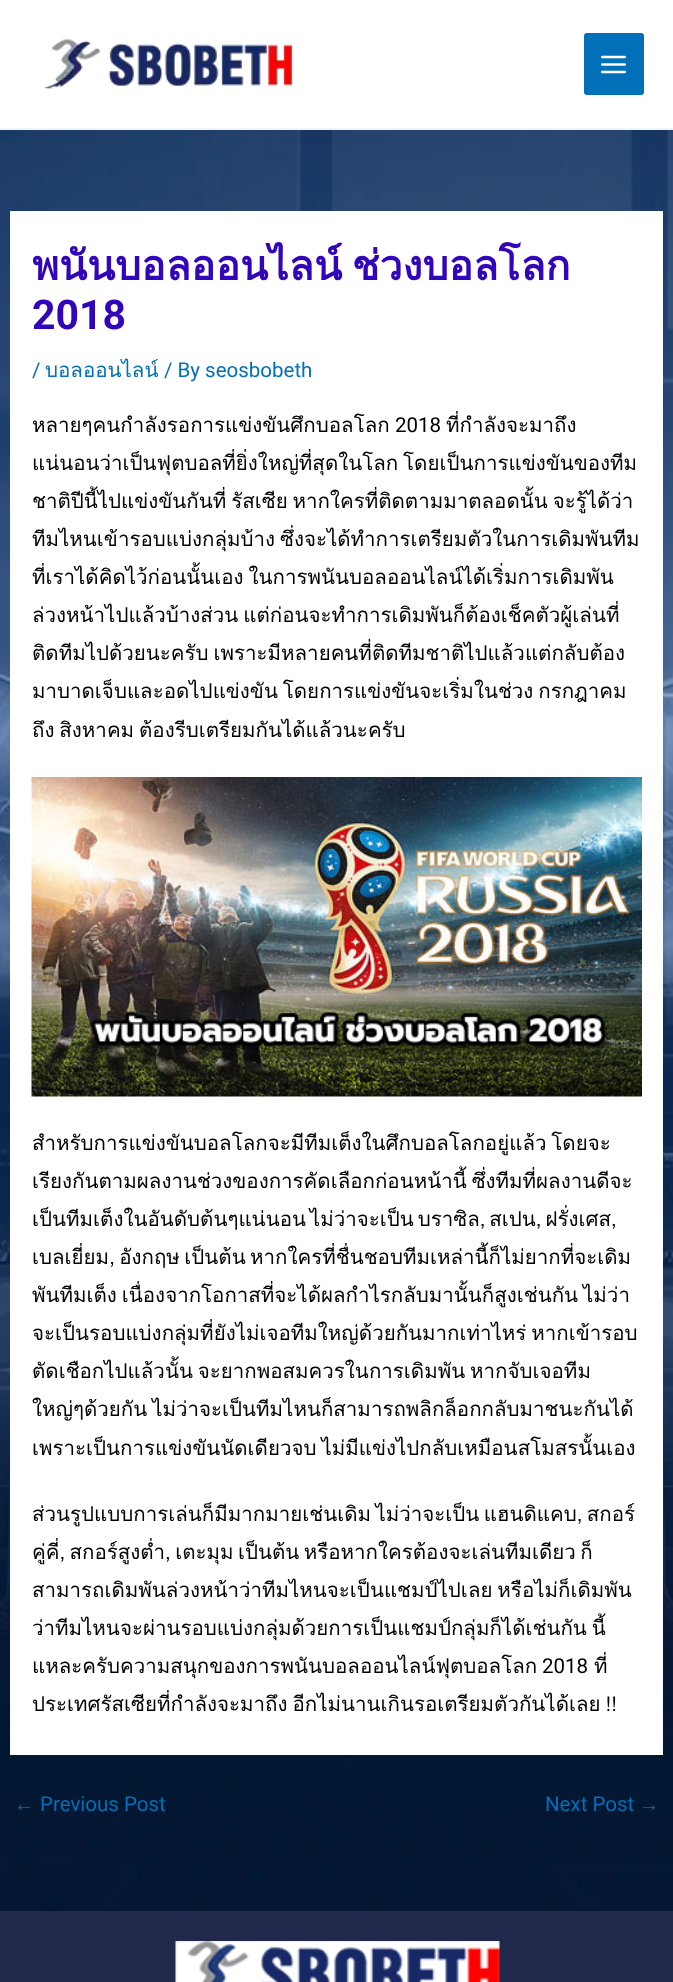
(async () => {
const canvas = document.querySelector("canvas")
canvas.width = 673
canvas.height = 1982
const c = canvas.getContext("2d")
c.miterLimit = 4
c.fontKerning = "normal"
function T(s,x,y){c.fillText(s,x,y)}
function R(x,y,w,h){c.fillRect(x,y,w,h)}
function Q(x,y,w,h,r){c.beginPath();c.roundRect(x,y,w,h,r);c.fill()}
async function I(src,x,y,w,h){const img=new Image();img.src=src;await img.decode();c.drawImage(img,x,y,w,h)}
c.fillStyle="#fff"
R(0,0,673,1982)
await I("1.png",0,130,673,1781)
c.fillStyle="#f2f5f7"
R(0,128,673,2)
await I("2.png",44,39,249,50)
c.fillStyle="#0170b9"
Q(584,33,60,62,3)
await I("3.png",601,55,25,19)
c.fillStyle="#fff"
R(10,211,653,1544)
c.wordSpacing="-4px"
c.font="bold 41px Loma"
c.fillStyle="#3305ba"
T("พนันบอลออนไลน์ ช่วงบอลโลก",32,280)
c.wordSpacing="0px"
c.font="bold 41px Roboto"
T("2018",32,329)
c.font="20.5px Roboto"
c.fillStyle="#0170b9"
T("/",32,377)
c.font="20.5px Loma"
T("บอลออนไลน์",45,377)
c.font="20.5px Roboto"
T("/ By seosbobeth",164,377)
c.font="20.5px Loma"
c.fillStyle="#000"
T("หลายๆคนกำลังรอการแข่งขันศึกบอลโลก",32,432)
c.font="20.5px Roboto"
T("2018",395,432)
c.font="20.5px Loma"
T("ที่กำลังจะมาถึง",446,432)
c.wordSpacing="-2px"
T("แน่นอนว่าเป็นฟุตบอลที่ยิ่งใหญ่ที่สุดในโลก โดยเป็นการแข่งขันของทีม",32,470)
T("ชาติปีนี้ไปแข่งขันกันที่ รัสเซีย หากใครที่ติดตามมาตลอดนั้น จะรู้ได้ว่า",32,508)
c.wordSpacing="0px"
T("ทีมไหนเข้ารอบแบ่งกลุ่มบ้าง",32,546)
T("ซึ่งจะได้ทำการเตรียมตัวในการเดิมพันทีม",280,546)
c.wordSpacing="-2px"
T("ที่เราได้คิดไว้ก่อนนั้นเอง ในการพนันบอลออนไลน์ได้เริ่มการเดิมพัน",32,584)
T("ล่วงหน้าไปแล้วบ้างส่วน แต่ก่อนจะทำการเดิมพันก็ต้องเช็คตัวผู้เล่นที่",32,622)
T("ติดทีมไปด้วยนะครับ เพราะมีหลายคนที่ติดทีมชาติไปแล้วแต่กลับต้อง",32,660)
T("มาบาดเจ็บและอดไปแข่งขัน โดยการแข่งขันจะเริ่มในช่วง กรกฎาคม",32,698)
T("ถึง สิงหาคม ต้องรีบเตรียมกันได้แล้วนะครับ",32,737)
await I("4.png",31,777,611,320)
T("สำหรับการแข่งขันบอลโลกจะมีทีมเต็งในศึกบอลโลกอยู่แล้ว โดยจะ",32,1150)
T("เรียงกันตามผลงานช่วงของการคัดเลือกก่อนหน้านี้ ซึ่งทีมที่ผลงานดีจะ",32,1188)
c.wordSpacing="-3px"
T("เป็นทีมเต็งในอันดับต้นๆแน่นอน ไม่ว่าจะเป็น บราซิล, สเปน, ฝรั่งเศส,",32,1226)
c.wordSpacing="-2.5px"
T("เบลเยี่ยม, อังกฤษ เป็นต้น หากใครที่ชื่นชอบทีมเหล่านี้ก็ไม่ยากที่จะเดิม",32,1264)
c.wordSpacing="-2px"
T("พันทีมเต็ง เนื่องจากโอกาสที่จะได้ผลกำไรกลับมานั้นก็สูงเช่นกัน ไม่ว่า",32,1302)
T("จะเป็นรอบแบ่งกลุ่มที่ยังไม่เจอทีมใหญ่ด้วยกันมากเท่าไหร่ หากเข้ารอบ",32,1340)
T("ตัดเชือกไปแล้วนั้น จะยากพอสมควรในการเดิมพัน หากจับเจอทีม",32,1378)
T("ใหญ่ๆด้วยกัน ไม่ว่าจะเป็นทีมไหนก็สามารถพลิกล็อกกลับมาชนะกันได้",32,1416)
T("เพราะเป็นการแข่งขันนัดเดียวจบ ไม่มีแข่งไปกลับเหมือนสโมสรนั้นเอง",32,1455)
c.wordSpacing="-2.5px"
T("ส่วนรูปแบบการเล่นก็มีมากมายเช่นเดิม ไม่ว่าจะเป็น แฮนดิแคบ, สกอร์",32,1521)
T("คู่คี่, สกอร์สูงต่ำ, เตะมุม เป็นต้น หรือหากใครต้องจะเล่นทีมเดียว ก็",32,1559)
c.wordSpacing="-2px"
T("สามารถเดิมพันล่วงหน้าว่าทีมไหนจะเป็นแชมป์ไปเลย หรือไม่ก็เดิมพัน",32,1597)
T("ว่าทีมไหนจะผ่านรอบแบ่งกลุ่มด้วยการเป็นแชมป์กลุ่มก็ได้เช่นกัน นี้",32,1635)
c.wordSpacing="0px"
T("แหละครับความสนุกของการพนันบอลออนไลน์ฟุตบอลโลก",32,1673)
c.font="20.5px Roboto"
T("2018",542,1673)
c.font="20.5px Loma"
T("ที่",594,1673)
c.wordSpacing="-2px"
T("ประเทศรัสเซียที่กำลังจะมาถึง อีกไม่นานเกินรอเตรียมตัวกันได้เลย !!",32,1711)
c.wordSpacing="0px"
c.font="20.5px Liberation Sans"
c.fillStyle="#0170b9"
T("←",14,1811)
c.font="20.5px Roboto"
T("Previous Post",40,1811)
T("Next Post",545,1811)
c.font="20.5px Liberation Sans"
T("→",639,1811)
c.fillStyle="#20284c"
R(0,1911,673,71)
await I("5.png",175,1941,325,41)
})()
